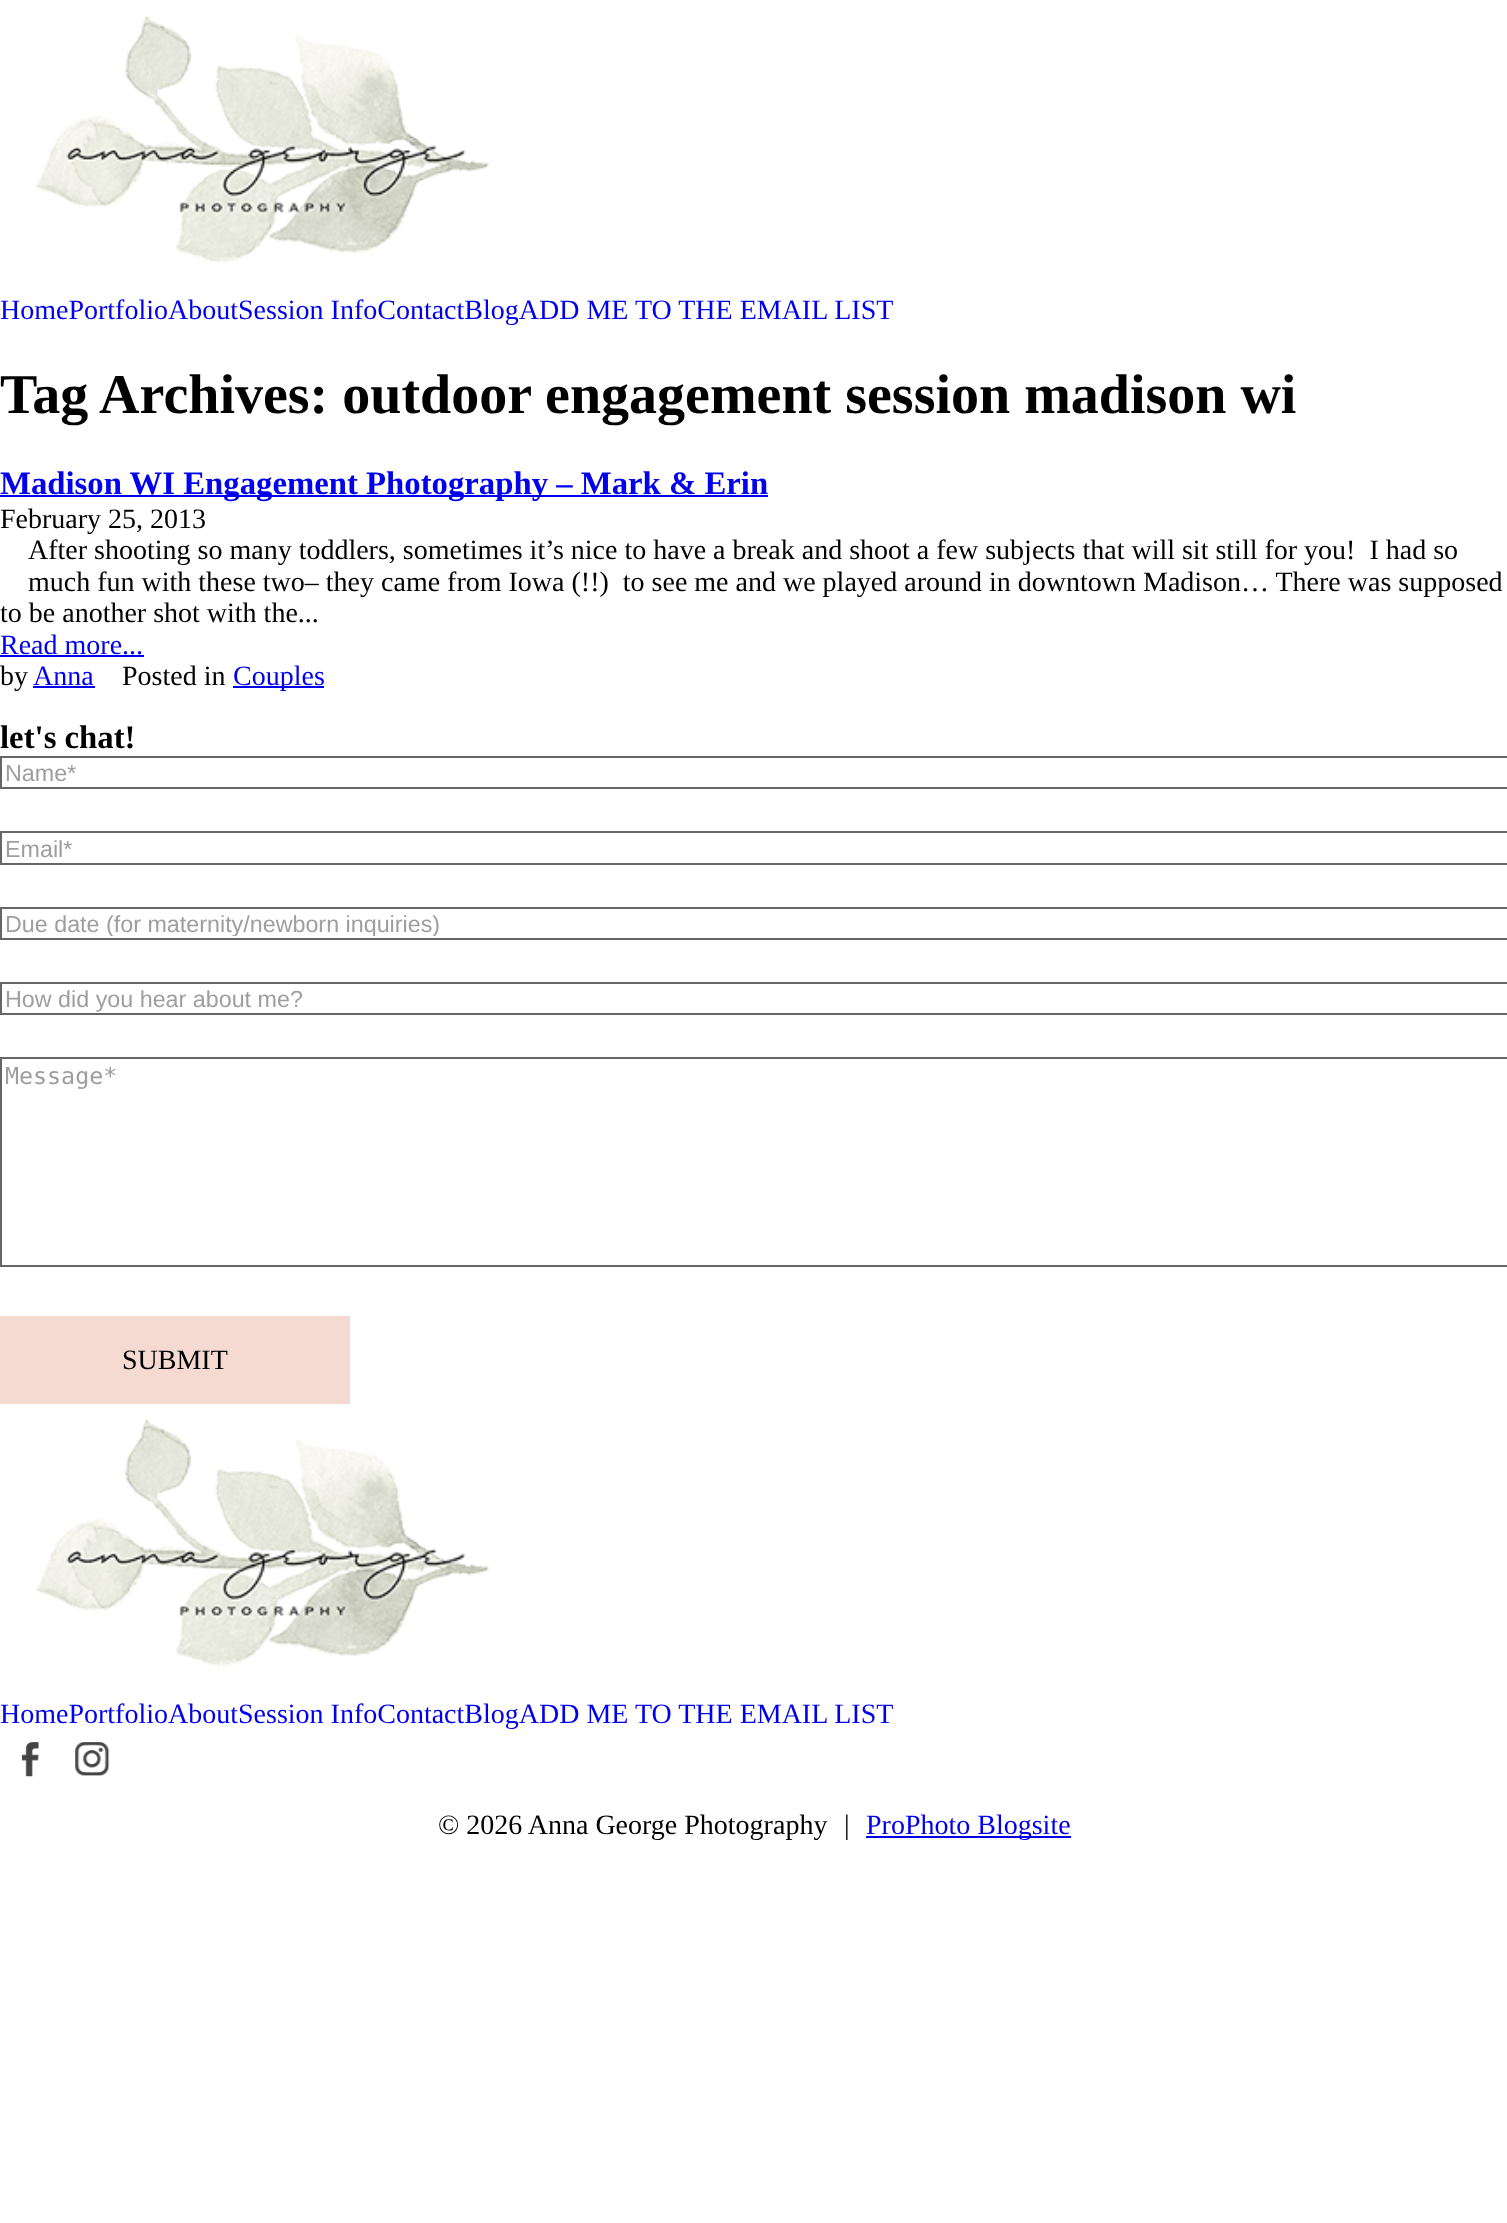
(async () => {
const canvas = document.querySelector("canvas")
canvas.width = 1507
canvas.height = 2223
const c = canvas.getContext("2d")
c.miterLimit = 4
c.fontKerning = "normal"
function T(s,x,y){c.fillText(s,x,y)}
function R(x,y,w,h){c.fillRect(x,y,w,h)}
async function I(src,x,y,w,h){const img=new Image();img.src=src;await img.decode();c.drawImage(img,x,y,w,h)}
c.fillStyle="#fff"
R(0,0,1507,2223)
await I("1.png",35,15,454,249)
c.font="28px Liberation Serif"
c.fillStyle="#00e"
T("HomePortfolioAboutSession InfoContactBlogADD ME TO THE EMAIL LIST",0,319)
c.font="bold 56px Liberation Serif"
c.fillStyle="#000"
T("Tag Archives: outdoor engagement session madison wi",0,413)
c.fillStyle="#00e"
R(0,495,768,2)
c.font="bold 32.75px Liberation Serif"
T("Madison WI Engagement Photography – Mark & Erin",0,494)
c.font="28px Liberation Serif"
c.fillStyle="#000"
T("February 25, 2013",0,528)
T("After shooting so many toddlers, sometimes it’s nice to have a break and shoot a few subjects that will sit still for you!  I had so",28,559)
T("much fun with these two– they came from Iowa (!!)  to see me and we played around in downtown Madison… There was supposed",28,591)
T("to be another shot with the...",0,622)
c.fillStyle="#00e"
T("Read more...",0,654)
R(0,655,144,2)
c.fillStyle="#000"
T("by",0,685)
c.fillStyle="#00e"
R(33,686,62,2)
T("Anna",33,685)
c.fillStyle="#000"
T("Posted in",122,685)
c.fillStyle="#00e"
R(233,686,91,2)
T("Couples",233,685)
c.font="bold 32.75px Liberation Serif"
c.fillStyle="#000"
T("let's chat!",0,748)
c.strokeStyle="#666"
c.lineWidth=2
c.strokeRect(1,757,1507,31)
c.font="23.3px Liberation Sans"
c.fillStyle="#9e9e9e"
T("Name*",5,781)
c.strokeRect(1,832,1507,32)
T("Email*",5,857)
c.strokeRect(1,908,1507,31)
c.save()
c.beginPath()
c.rect(5,910,1498,26)
c.clip()
T("Due date (for maternity/newborn inquiries)",5,932)
c.restore()
c.strokeRect(1,983,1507,31)
T("How did you hear about me?",5,1007)
c.strokeRect(1,1058,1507,208)
c.font="23.3px DejaVu Sans Mono"
T("Message*",5,1084)
c.fillStyle="#f4dad0"
R(0,1316,350,88)
c.font="28px Liberation Serif"
c.fillStyle="#000"
T("SUBMIT",122,1369)
await I("2.png",35,1419,454,248)
c.fillStyle="#00e"
T("HomePortfolioAboutSession InfoContactBlogADD ME TO THE EMAIL LIST",0,1723)
await I("3.png",21,1742,18,35)
await I("4.png",75,1742,35,34)
c.fillStyle="#000"
T("© 2026 Anna George Photography",438,1834)
T("|",844,1834)
c.fillStyle="#00e"
R(866,1836,205,2)
T("ProPhoto Blogsite",866,1834)
})()
